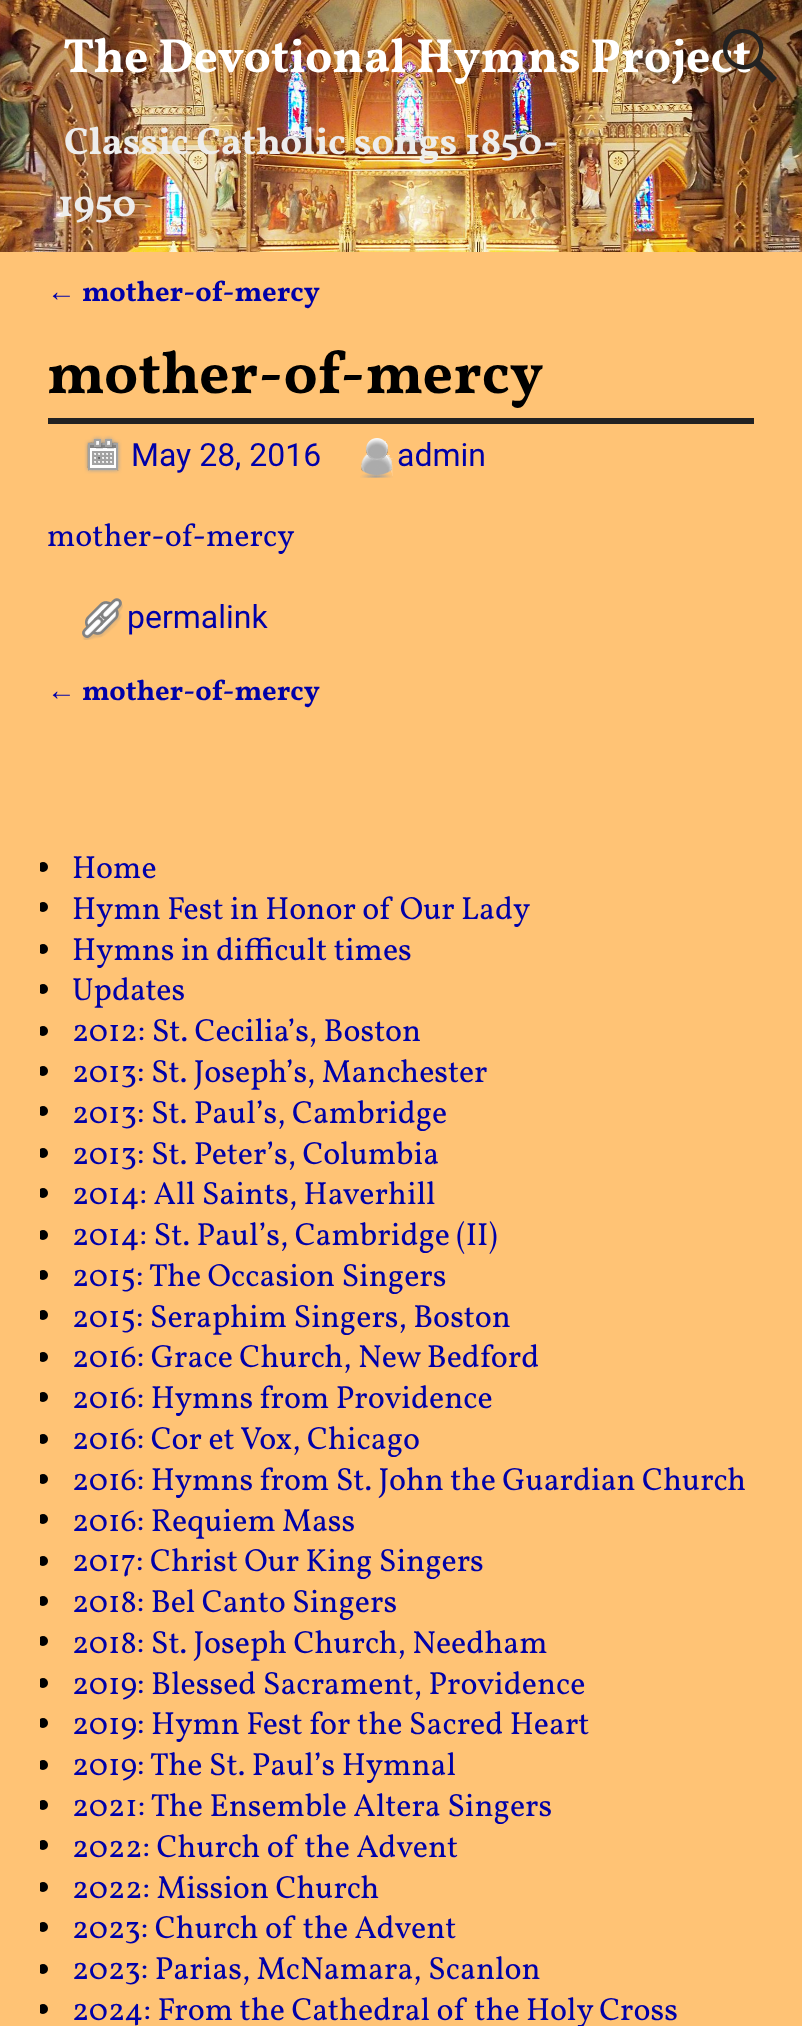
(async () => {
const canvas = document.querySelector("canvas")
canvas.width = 802
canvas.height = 2026
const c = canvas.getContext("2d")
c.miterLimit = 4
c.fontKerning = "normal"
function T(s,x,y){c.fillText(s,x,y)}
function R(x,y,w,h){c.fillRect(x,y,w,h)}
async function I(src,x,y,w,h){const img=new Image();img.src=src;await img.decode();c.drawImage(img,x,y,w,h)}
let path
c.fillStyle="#ffc375"
R(0,0,802,2026)
await I("1.png",0,0,802,252)
c.font="bold 48px Vollkorn"
c.fillStyle="#fff"
T("The Devotional Hymns Project",63,72)
c.fillStyle="#222"
path = new Path2D("M777 78l-5 5l-17-17c-10 7-24 3-30-8c-2-4-2-8-2-13c4-21 34-21 40-1c1 6 0 12-3 17zm-47-37c-11 18 16 34 27 16c10-18-17-34-27-16z")
c.fill(path)
c.font="bold 38.4px Vollkorn"
c.fillStyle="#ededed"
T("Classic Catholic songs 1850-",64,154)
T("1950",58,216)
c.font="28.75px Liberation Serif"
c.fillStyle="#0000a8"
T("←",47,301)
c.font="bold 28.75px Vollkorn"
T("mother-of-mercy",82,301)
c.fillStyle="#222"
R(48,418,706,6)
c.font="bold 60px Vollkorn"
c.fillStyle="#000"
T("mother-of-mercy",47,393)
await I("2.png",84,435,38,39)
c.font="32px Roboto"
c.fillStyle="#0000a8"
T("May 28, 2016",131,466)
await I("3.png",360,438,33,40)
T("admin",397,466)
c.font="32px Vollkorn"
T("mother-of-mercy",47,546)
await I("4.png",82,598,41,42)
c.font="32px Roboto"
T("permalink",127,628)
c.font="28.75px Liberation Serif"
T("←",47,700)
c.font="bold 28.75px Vollkorn"
T("mother-of-mercy",82,700)
c.save()
c.beginPath()
c.rect(40,850,722,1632)
c.clip()
c.fillStyle="#000"
c.beginPath()
c.arc(43,867,5,0,7)
c.fill()
c.restore()
c.font="32px Vollkorn"
T("Home",72,878)
c.save()
c.beginPath()
c.rect(40,850,722,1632)
c.clip()
c.fillStyle="#000"
c.beginPath()
c.arc(43,907,5,0,7)
c.fill()
c.restore()
T("Hymn Fest in Honor of Our Lady",72,919)
c.save()
c.beginPath()
c.rect(40,850,722,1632)
c.clip()
c.fillStyle="#000"
c.beginPath()
c.arc(43,949,5,0,7)
c.fill()
c.restore()
T("Hymns in difficult times",72,960)
c.save()
c.beginPath()
c.rect(40,850,722,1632)
c.clip()
c.fillStyle="#000"
c.beginPath()
c.arc(43,989,5,0,7)
c.fill()
c.restore()
T("Updates",72,1000)
c.save()
c.beginPath()
c.rect(40,850,722,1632)
c.clip()
c.fillStyle="#000"
c.beginPath()
c.arc(43,1031,5,0,7)
c.fill()
c.restore()
T("2012: St. Cecilia’s, Boston",72,1041)
c.save()
c.beginPath()
c.rect(40,850,722,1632)
c.clip()
c.fillStyle="#000"
c.beginPath()
c.arc(43,1071,5,0,7)
c.fill()
c.restore()
T("2013: St. Joseph’s, Manchester",72,1082)
c.save()
c.beginPath()
c.rect(40,850,722,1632)
c.clip()
c.fillStyle="#000"
c.beginPath()
c.arc(43,1111,5,0,7)
c.fill()
c.restore()
T("2013: St. Paul’s, Cambridge",72,1123)
c.save()
c.beginPath()
c.rect(40,850,722,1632)
c.clip()
c.fillStyle="#000"
c.beginPath()
c.arc(43,1153,5,0,7)
c.fill()
c.restore()
T("2013: St. Peter’s, Columbia",72,1164)
c.save()
c.beginPath()
c.rect(40,850,722,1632)
c.clip()
c.fillStyle="#000"
c.beginPath()
c.arc(43,1193,5,0,7)
c.fill()
c.restore()
T("2014: All Saints, Haverhill",72,1204)
c.save()
c.beginPath()
c.rect(40,850,722,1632)
c.clip()
c.fillStyle="#000"
c.beginPath()
c.arc(43,1235,5,0,7)
c.fill()
c.restore()
T("2014: St. Paul’s, Cambridge (II)",72,1245)
c.save()
c.beginPath()
c.rect(40,850,722,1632)
c.clip()
c.fillStyle="#000"
c.beginPath()
c.arc(43,1275,5,0,7)
c.fill()
c.restore()
T("2015: The Occasion Singers",72,1286)
c.save()
c.beginPath()
c.rect(40,850,722,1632)
c.clip()
c.fillStyle="#000"
c.beginPath()
c.arc(43,1315,5,0,7)
c.fill()
c.restore()
T("2015: Seraphim Singers, Boston",72,1327)
c.save()
c.beginPath()
c.rect(40,850,722,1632)
c.clip()
c.fillStyle="#000"
c.beginPath()
c.arc(43,1357,5,0,7)
c.fill()
c.restore()
T("2016: Grace Church, New Bedford",72,1367)
c.save()
c.beginPath()
c.rect(40,850,722,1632)
c.clip()
c.fillStyle="#000"
c.beginPath()
c.arc(43,1397,5,0,7)
c.fill()
c.restore()
T("2016: Hymns from Providence",72,1408)
c.save()
c.beginPath()
c.rect(40,850,722,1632)
c.clip()
c.fillStyle="#000"
c.beginPath()
c.arc(43,1439,5,0,7)
c.fill()
c.restore()
T("2016: Cor et Vox, Chicago",72,1449)
c.save()
c.beginPath()
c.rect(40,850,722,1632)
c.clip()
c.fillStyle="#000"
c.beginPath()
c.arc(43,1479,5,0,7)
c.fill()
c.restore()
T("2016: Hymns from St. John the Guardian Church",72,1490)
c.save()
c.beginPath()
c.rect(40,850,722,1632)
c.clip()
c.fillStyle="#000"
c.beginPath()
c.arc(43,1519,5,0,7)
c.fill()
c.restore()
T("2016: Requiem Mass",72,1531)
c.save()
c.beginPath()
c.rect(40,850,722,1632)
c.clip()
c.fillStyle="#000"
c.beginPath()
c.arc(43,1561,5,0,7)
c.fill()
c.restore()
T("2017: Christ Our King Singers",72,1571)
c.save()
c.beginPath()
c.rect(40,850,722,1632)
c.clip()
c.fillStyle="#000"
c.beginPath()
c.arc(43,1601,5,0,7)
c.fill()
c.restore()
T("2018: Bel Canto Singers",72,1612)
c.save()
c.beginPath()
c.rect(40,850,722,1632)
c.clip()
c.fillStyle="#000"
c.beginPath()
c.arc(43,1641,5,0,7)
c.fill()
c.restore()
T("2018: St. Joseph Church, Needham",72,1653)
c.save()
c.beginPath()
c.rect(40,850,722,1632)
c.clip()
c.fillStyle="#000"
c.beginPath()
c.arc(43,1683,5,0,7)
c.fill()
c.restore()
T("2019: Blessed Sacrament, Providence",72,1694)
c.save()
c.beginPath()
c.rect(40,850,722,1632)
c.clip()
c.fillStyle="#000"
c.beginPath()
c.arc(43,1723,5,0,7)
c.fill()
c.restore()
T("2019: Hymn Fest for the Sacred Heart",72,1734)
c.save()
c.beginPath()
c.rect(40,850,722,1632)
c.clip()
c.fillStyle="#000"
c.beginPath()
c.arc(43,1765,5,0,7)
c.fill()
c.restore()
T("2019: The St. Paul’s Hymnal",72,1775)
c.save()
c.beginPath()
c.rect(40,850,722,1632)
c.clip()
c.fillStyle="#000"
c.beginPath()
c.arc(43,1805,5,0,7)
c.fill()
c.restore()
T("2021: The Ensemble Altera Singers",72,1816)
c.save()
c.beginPath()
c.rect(40,850,722,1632)
c.clip()
c.fillStyle="#000"
c.beginPath()
c.arc(43,1845,5,0,7)
c.fill()
c.restore()
T("2022: Church of the Advent",72,1857)
c.save()
c.beginPath()
c.rect(40,850,722,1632)
c.clip()
c.fillStyle="#000"
c.beginPath()
c.arc(43,1887,5,0,7)
c.fill()
c.restore()
T("2022: Mission Church",72,1898)
c.save()
c.beginPath()
c.rect(40,850,722,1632)
c.clip()
c.fillStyle="#000"
c.beginPath()
c.arc(43,1927,5,0,7)
c.fill()
c.restore()
T("2023: Church of the Advent",72,1938)
c.save()
c.beginPath()
c.rect(40,850,722,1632)
c.clip()
c.fillStyle="#000"
c.beginPath()
c.arc(43,1969,5,0,7)
c.fill()
c.restore()
T("2023: Parias, McNamara, Scanlon",72,1979)
c.save()
c.beginPath()
c.rect(40,850,722,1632)
c.clip()
c.fillStyle="#000"
c.beginPath()
c.arc(43,2009,5,0,7)
c.fill()
c.restore()
T("2024: From the Cathedral of the Holy Cross",72,2020)
})()
